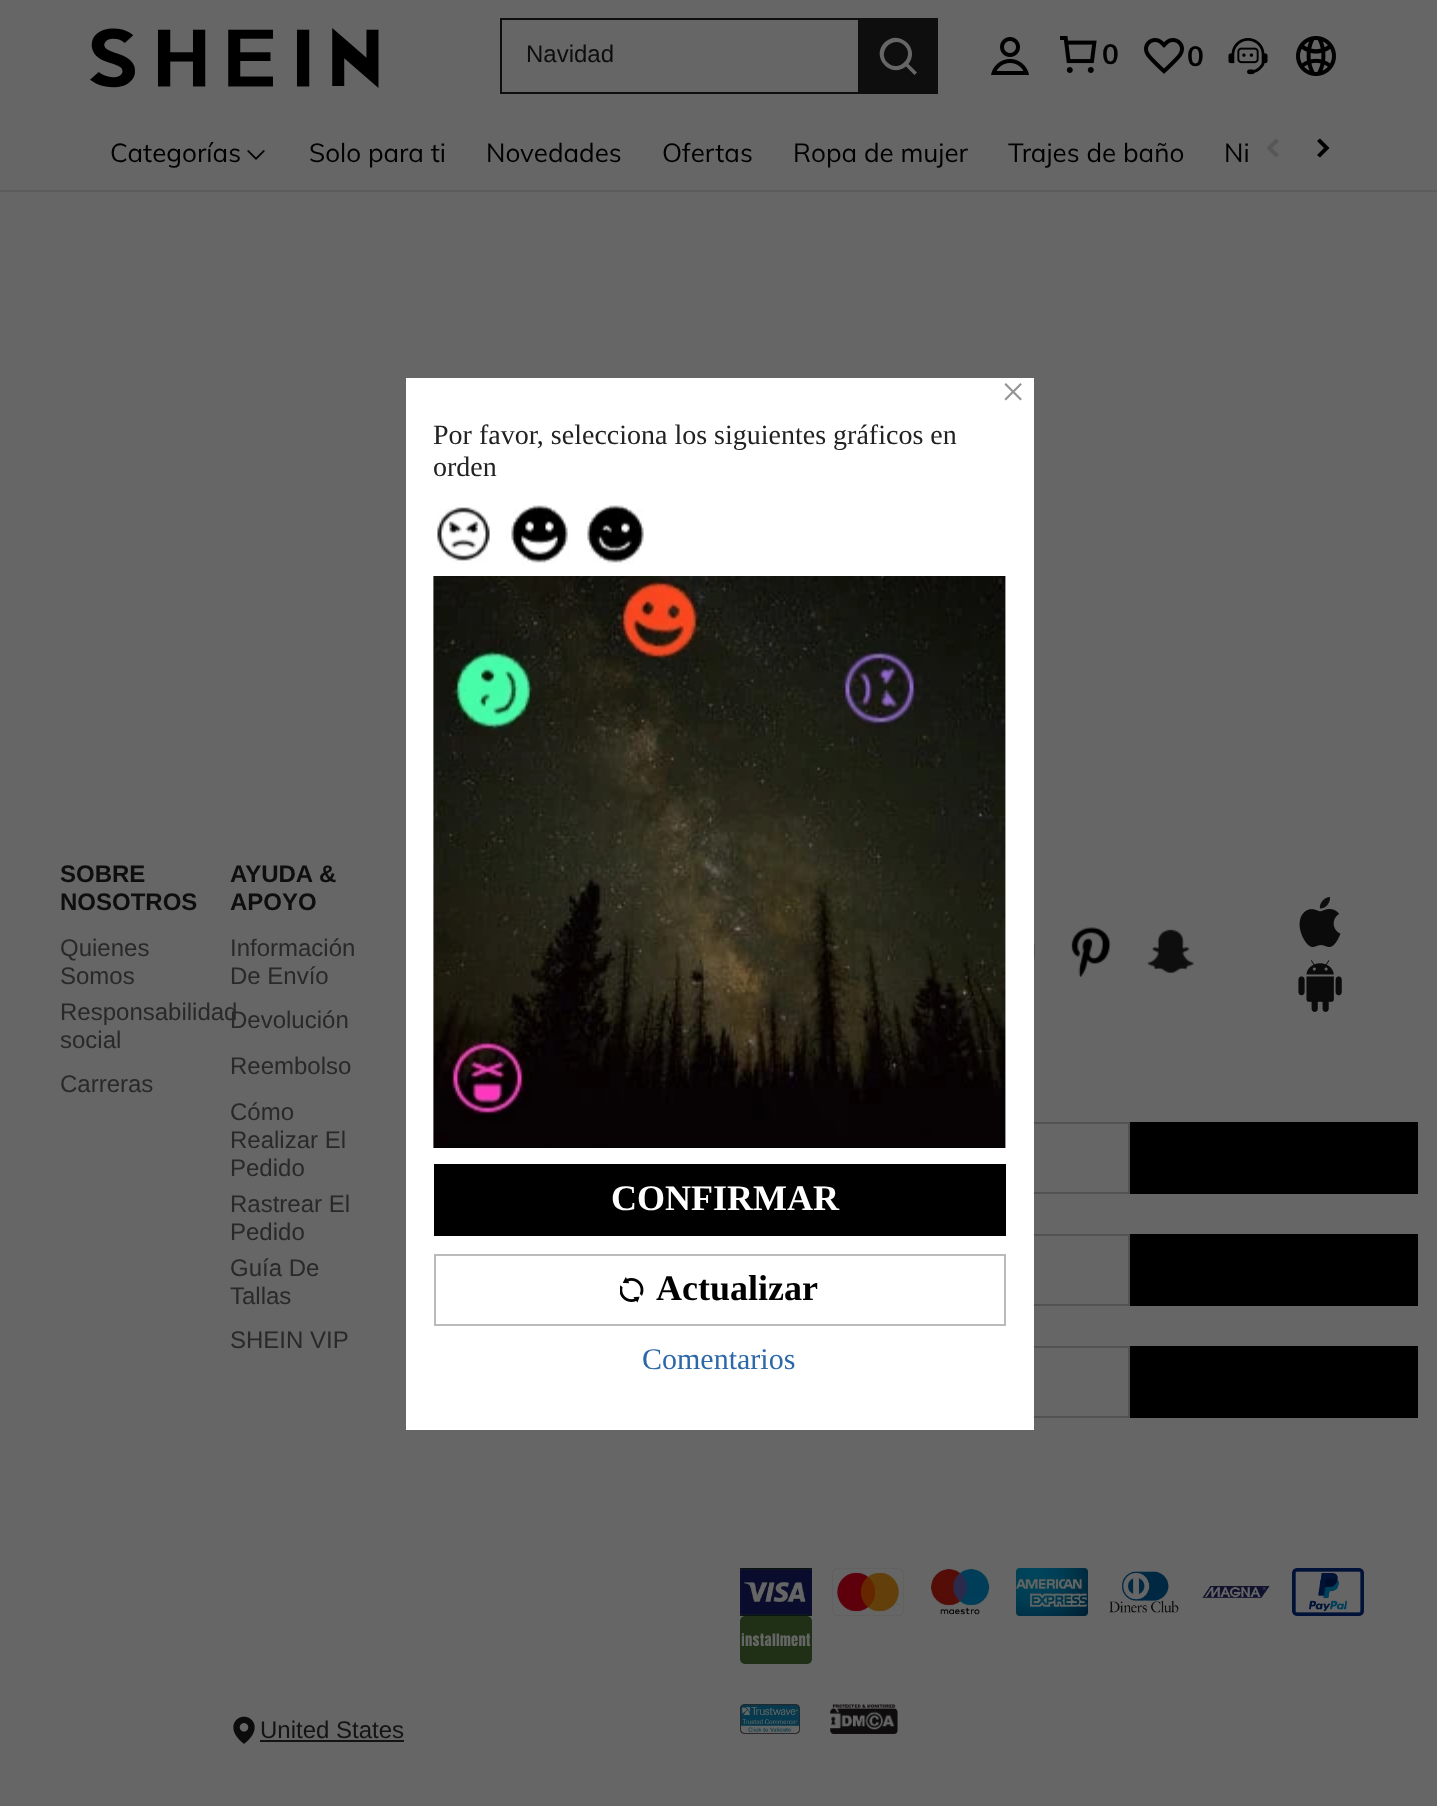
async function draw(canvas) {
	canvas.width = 1437;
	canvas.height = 1806;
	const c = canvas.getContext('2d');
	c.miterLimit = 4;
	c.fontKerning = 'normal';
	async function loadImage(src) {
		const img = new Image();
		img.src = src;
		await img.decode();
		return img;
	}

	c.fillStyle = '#666';
	c.fillRect(0, 0, 1437, 1806);
	c.drawImage(await loadImage('img1.png'), 90, 28, 289, 60);
	for (const [x, y, w, h, color] of [
		[500, 18, 358, 2, '#0e0e0e'],
		[500, 92, 358, 2, '#0e0e0e'],
		[500, 18, 2, 76, '#0e0e0e'],
	]) {
		c.fillStyle = color;
		c.fillRect(x, y, w, h);
	}
	c.font = '24px Liberation Sans';
	c.fillText('Navidad', 526, 62);
	c.fillRect(858, 18, 80, 76);
	c.fillStyle = '#666';
	c.beginPath();
	c.moveTo(884.5, 42.5);
	c.bezierCurveTo(898.5, 28.5, 921, 48, 908.5, 64);
	c.lineTo(917, 72.5);
	c.lineTo(914.5, 75);
	c.lineTo(906, 66.5);
	c.bezierCurveTo(890, 79, 870.5, 56.5, 884.5, 42.5);
	c.closePath();
	c.moveTo(904.5, 45.5);
	c.bezierCurveTo(893.5, 34.5, 876.5, 51.5, 887.5, 62.5);
	c.bezierCurveTo(898.5, 73.5, 915.5, 56.5, 904.5, 45.5);
	c.closePath();
	c.fill('evenodd');
	c.drawImage(await loadImage('img2.png'), 991, 37, 38, 38);
	c.drawImage(await loadImage('img3.png'), 1060, 36, 37, 37);
	c.font = 'bold 28px Muli';
	c.fillStyle = '#000';
	c.fillText('0', 1102, 64);
	c.drawImage(await loadImage('img4.png'), 1144, 38, 40, 36);
	c.fillText('0', 1187, 66);
	c.drawImage(await loadImage('img5.png'), 1228, 38, 40, 37);
	c.drawImage(await loadImage('img6.png'), 1296, 36, 40, 40);
	c.fillStyle = '#5c5c5c';
	c.fillRect(0, 190, 1437, 2);
	c.font = '26px Muli';
	c.fillStyle = '#000';
	c.fillText('Categorías', 110, 162);
	c.beginPath();
	c.moveTo(263.5, 150);
	c.lineTo(265, 151);
	c.lineTo(256, 160);
	c.lineTo(247, 151);
	c.lineTo(248.5, 150);
	c.lineTo(256, 157.5);
	c.closePath();
	c.fill();
	for (const [text, x, y] of [
		['Solo para ti', 309, 162],
		['Novedades', 486, 162],
		['Ofertas', 662, 162],
		['Ropa de mujer', 793, 162],
		['Trajes de baño', 1008, 162],
		['Ni', 1224, 162],
	]) {
		c.fillText(text, x, y);
	}
	c.fillStyle = '#575757';
	c.beginPath();
	c.moveTo(1276, 138.5);
	c.lineTo(1279, 141);
	c.lineTo(1272, 148);
	c.lineTo(1279, 155);
	c.lineTo(1276, 157.5);
	c.lineTo(1266.5, 148);
	c.closePath();
	c.fill('evenodd');
	c.fillStyle = '#000';
	c.beginPath();
	c.moveTo(1317, 141);
	c.lineTo(1320, 138.5);
	c.lineTo(1329.5, 148);
	c.lineTo(1320, 157.5);
	c.lineTo(1317, 155);
	c.lineTo(1324, 148);
	c.closePath();
	c.fill('evenodd');
	c.font = 'bold 24px Liberation Sans';
	c.fillStyle = '#0e0e0e';
	c.fillText('SOBRE', 60, 882);
	c.fillText('NOSOTROS', 60, 910);
	c.font = '24px Liberation Sans';
	c.fillStyle = '#292929';
	for (const [text, x, y] of [
		['Quienes', 60, 956],
		['Somos', 60, 984],
		['Responsabilidad', 60, 1020],
		['social', 60, 1048],
		['Carreras', 60, 1092],
	]) {
		c.fillText(text, x, y);
	}
	c.font = 'bold 24px Liberation Sans';
	c.fillStyle = '#0e0e0e';
	c.fillText('AYUDA &', 230, 882);
	c.fillText('APOYO', 230, 910);
	c.font = '24px Liberation Sans';
	c.fillStyle = '#292929';
	for (const [text, x, y] of [
		['Información', 230, 956],
		['De Envío', 230, 984],
		['Devolución', 230, 1028],
		['Reembolso', 230, 1074],
		['Cómo', 230, 1120],
		['Realizar El', 230, 1148],
		['Pedido', 230, 1176],
		['Rastrear El', 230, 1212],
		['Pedido', 230, 1240],
		['Guía De', 230, 1276],
		['Tallas', 230, 1304],
		['SHEIN VIP', 230, 1348],
	]) {
		c.fillText(text, x, y);
	}
	c.drawImage(await loadImage('img7.png'), 1034, 942, 1, 20);
	c.drawImage(await loadImage('img8.png'), 1071, 927, 40, 50);
	c.drawImage(await loadImage('img9.png'), 1147, 929, 47, 44);
	c.drawImage(await loadImage('img10.png'), 1299, 896, 42, 52);
	c.drawImage(await loadImage('img11.png'), 1298, 960, 44, 52);
	c.strokeStyle = '#525252';
	c.lineWidth = 2;
	c.strokeRect(741, 1123, 388, 70);
	c.fillStyle = '#000';
	c.fillRect(1130, 1122, 288, 72);
	c.strokeRect(901, 1235, 228, 70);
	c.fillRect(1130, 1234, 288, 72);
	c.strokeRect(901, 1347, 228, 70);
	c.fillRect(1130, 1346, 288, 72);
	c.drawImage(await loadImage('img12.png'), 740, 1568, 72, 48);
	c.drawImage(await loadImage('img13.png'), 832, 1568, 72, 48);
	c.drawImage(await loadImage('img14.png'), 924, 1568, 72, 48);
	c.drawImage(await loadImage('img15.png'), 1016, 1568, 72, 48);
	c.drawImage(await loadImage('img16.png'), 1108, 1568, 72, 48);
	c.drawImage(await loadImage('img17.png'), 1200, 1568, 72, 48);
	c.drawImage(await loadImage('img18.png'), 1292, 1568, 72, 48);
	c.drawImage(await loadImage('img19.png'), 740, 1616, 72, 48);
	c.drawImage(await loadImage('img20.png'), 233, 1716, 22, 28);
	c.fillStyle = '#141414';
	c.fillText('United States', 260, 1738);
	c.fillRect(260, 1740, 144, 2);
	c.drawImage(await loadImage('img21.png'), 740, 1704, 60, 30);
	c.drawImage(await loadImage('img22.png'), 830, 1704, 68, 30);
	c.fillStyle = '#fff';
	c.fillRect(406, 378, 628, 1052);
	c.font = '43px Liberation Serif';
	c.fillStyle = '#959595';
	c.fillText('×', 1001, 406);
	c.font = '28px Liberation Serif';
	c.fillStyle = '#222';
	c.fillText('Por favor, selecciona los siguientes gráficos en', 433, 444);
	c.fillText('orden', 433, 476);
	c.drawImage(await loadImage('img23.png'), 436, 505, 208, 59);
	c.drawImage(await loadImage('img24.png'), 433, 576, 573, 572);
	c.fillStyle = '#000';
	c.fillRect(434, 1164, 572, 72);
	c.font = 'bold 36px Liberation Serif';
	c.fillStyle = '#fff';
	c.fillText('CONFIRMAR', 611, 1210);
	c.strokeStyle = '#bbb';
	c.strokeRect(435, 1255, 570, 70);
	c.drawImage(await loadImage('img25.png'), 620, 1277, 24, 26);
	c.fillStyle = '#000';
	c.fillText('Actualizar', 656, 1300);
	c.font = '30px Liberation Serif';
	c.fillStyle = '#2d68a8';
	c.fillText('Comentarios', 642, 1369);
}

draw(document.querySelector('canvas'));
